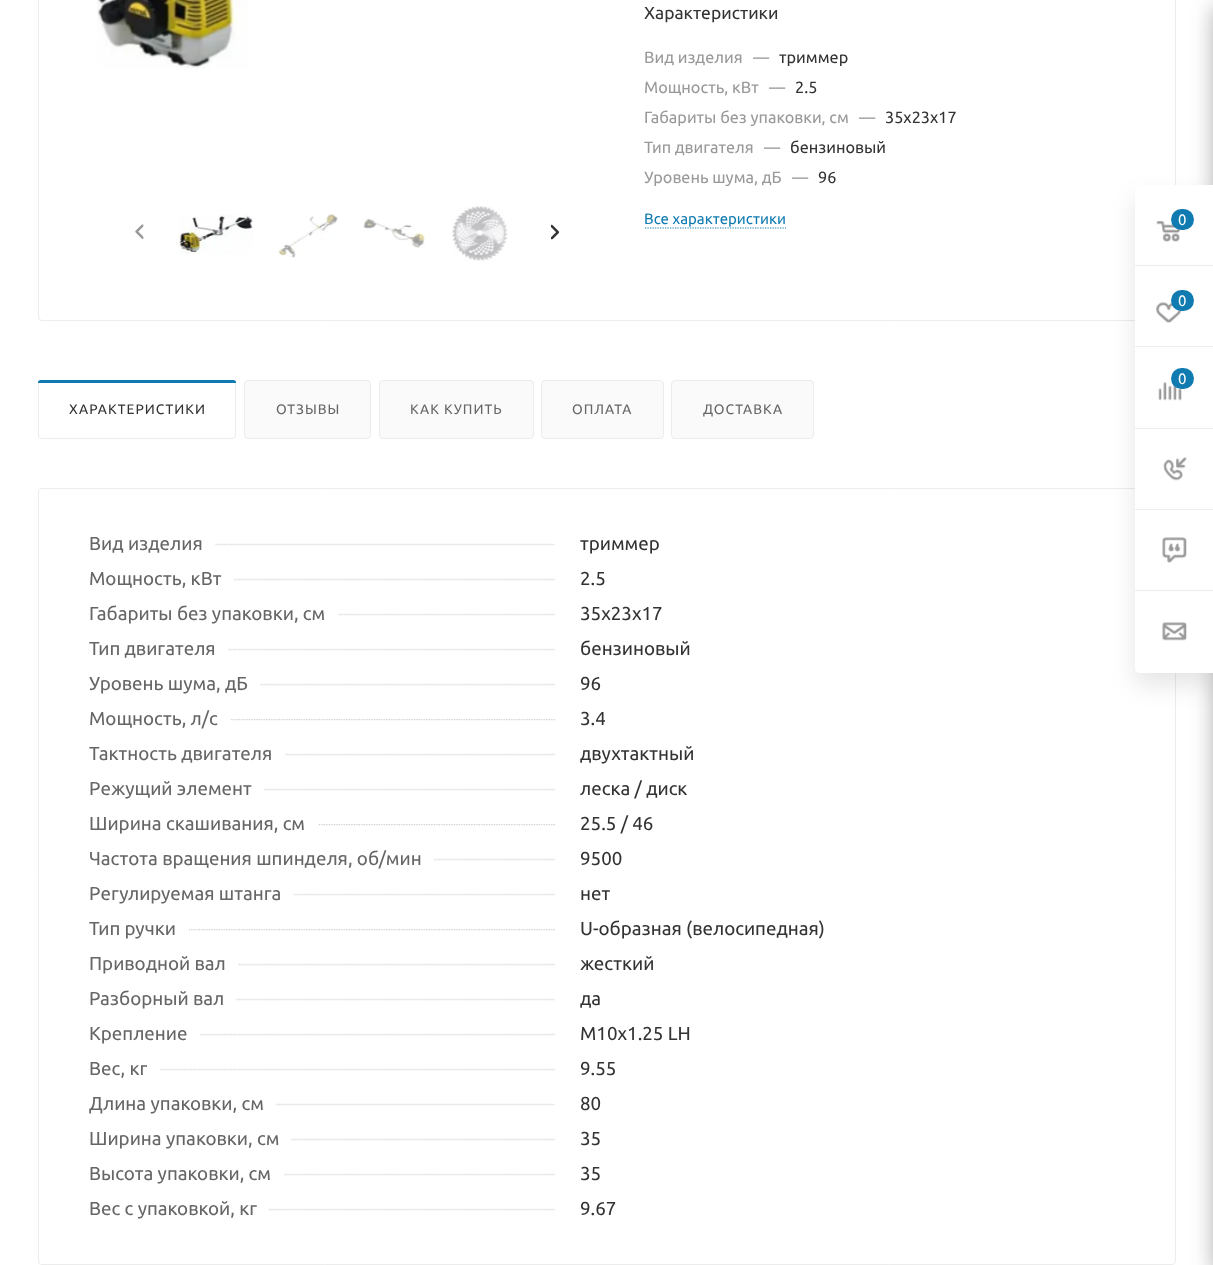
async function draw(canvas) {
	canvas.width = 1213;
	canvas.height = 1265;
	const c = canvas.getContext('2d');
	c.miterLimit = 4;
	c.fontKerning = 'normal';
	async function loadImage(src) {
		const img = new Image();
		img.src = src;
		await img.decode();
		return img;
	}

	c.fillStyle = '#fff';
	c.fillRect(0, 0, 1213, 1265);
	c.beginPath();
	c.roundRect(38.5, -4.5, 1137, 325, 3.5);
	c.strokeStyle = '#ececec';
	c.stroke();
	c.drawImage(await loadImage('img1.png'), 97, 0, 152, 69);
	c.drawImage(await loadImage('img2.png'), 178, 214, 75, 40);
	c.drawImage(await loadImage('img3.png'), 278, 214, 60, 44);
	c.drawImage(await loadImage('img4.png'), 363, 218, 63, 30);
	c.drawImage(await loadImage('img5.png'), 452, 206, 56, 55);
	c.drawImage(await loadImage('img6.png'), 135, 224, 9, 15);
	c.drawImage(await loadImage('img7.png'), 550, 224, 10, 16);
	c.font = '17.5px Ubuntu';
	c.fillStyle = '#333';
	c.fillText('Характеристики', 644, 19);
	c.font = '16.25px Ubuntu';
	c.fillStyle = '#999';
	c.fillText('Вид изделия', 644, 63);
	c.fillText('—', 753, 63);
	c.fillStyle = '#333';
	c.fillText('триммер', 779, 63);
	c.fillStyle = '#999';
	c.fillText('Мощность, кВт', 644, 93);
	c.fillText('—', 769, 93);
	c.fillStyle = '#333';
	c.fillText('2.5', 795, 93);
	c.fillStyle = '#999';
	c.fillText('Габариты без упаковки, см', 644, 123);
	c.fillText('—', 859, 123);
	c.fillStyle = '#333';
	c.fillText('35х23х17', 885, 123);
	c.fillStyle = '#999';
	c.fillText('Тип двигателя', 644, 153);
	c.fillText('—', 764, 153);
	c.fillStyle = '#333';
	c.fillText('бензиновый', 790, 153);
	c.fillStyle = '#999';
	c.fillText('Уровень шума, дБ', 644, 183);
	c.fillText('—', 792, 183);
	c.fillStyle = '#333';
	c.fillText('96', 818, 183);
	c.font = '15px Ubuntu';
	c.fillStyle = '#107bb1';
	c.fillText('Все характеристики', 644, 224);
	c.beginPath();
	c.moveTo(645, 228);
	c.lineTo(786, 228);
	c.strokeStyle = '#107bb1';
	c.lineWidth = 1.2;
	c.setLineDash([1.25, 1.25]);
	c.stroke();
	c.fillStyle = '#fafafa';
	c.beginPath();
	c.roundRect(38.5, 380.5, 197, 58, 3.5);
	c.fill();
	c.strokeStyle = '#ececec';
	c.lineWidth = 1;
	c.setLineDash([]);
	c.stroke();
	c.fillStyle = '#fff';
	c.beginPath();
	c.roundRect(39, 381, 196, 57, 4);
	c.fill();
	c.fillStyle = '#107bb1';
	c.beginPath();
	c.roundRect(38, 380, 198, 3, [2.5, 2.5, 0, 0]);
	c.fill();
	c.letterSpacing = '1px';
	c.font = '13.75px Ubuntu';
	c.fillStyle = '#333';
	c.fillText('ХАРАКТЕРИСТИКИ', 69, 414);
	c.fillStyle = '#fafafa';
	c.beginPath();
	c.roundRect(244.5, 380.5, 126, 58, 3.5);
	c.fill();
	c.stroke();
	c.fillStyle = '#666';
	c.fillText('ОТЗЫВЫ', 276, 414);
	c.fillStyle = '#fafafa';
	c.beginPath();
	c.roundRect(379.5, 380.5, 154, 58, 3.5);
	c.fill();
	c.stroke();
	c.fillStyle = '#666';
	c.fillText('КАК КУПИТЬ', 410, 414);
	c.fillStyle = '#fafafa';
	c.beginPath();
	c.roundRect(541.5, 380.5, 122, 58, 3.5);
	c.fill();
	c.stroke();
	c.fillStyle = '#666';
	c.fillText('ОПЛАТА', 572, 414);
	c.fillStyle = '#fafafa';
	c.beginPath();
	c.roundRect(671.5, 380.5, 142, 58, 3.5);
	c.fill();
	c.stroke();
	c.fillStyle = '#666';
	c.fillText('ДОСТАВКА', 703, 414);
	c.beginPath();
	c.roundRect(38.5, 488.5, 1137, 776, 3.5);
	c.stroke();
	c.drawImage(await loadImage('img8.png'), 88, 543, 467, 3);
	c.fillStyle = '#fff';
	c.fillRect(89, 543, 126, 3);
	c.letterSpacing = '0px';
	c.font = '18.75px Ubuntu';
	c.fillStyle = '#666';
	c.fillText('Вид изделия', 89, 550);
	c.fillStyle = '#333';
	c.fillText('триммер', 580, 550);
	c.drawImage(await loadImage('img8.png'), 88, 578, 467, 3);
	c.fillStyle = '#fff';
	c.fillRect(89, 578, 145, 3);
	c.fillStyle = '#666';
	c.fillText('Мощность, кВт', 89, 585);
	c.fillStyle = '#333';
	c.fillText('2.5', 580, 585);
	c.drawImage(await loadImage('img8.png'), 88, 613, 467, 3);
	c.fillStyle = '#fff';
	c.fillRect(89, 613, 249, 3);
	c.fillStyle = '#666';
	c.fillText('Габариты без упаковки, см', 89, 620);
	c.fillStyle = '#333';
	c.fillText('35х23х17', 580, 620);
	c.drawImage(await loadImage('img8.png'), 88, 648, 467, 3);
	c.fillStyle = '#fff';
	c.fillRect(89, 648, 139, 3);
	c.fillStyle = '#666';
	c.fillText('Тип двигателя', 89, 655);
	c.fillStyle = '#333';
	c.fillText('бензиновый', 580, 655);
	c.drawImage(await loadImage('img8.png'), 88, 683, 467, 3);
	c.fillStyle = '#fff';
	c.fillRect(89, 683, 171, 3);
	c.fillStyle = '#666';
	c.fillText('Уровень шума, дБ', 89, 690);
	c.fillStyle = '#333';
	c.fillText('96', 580, 690);
	c.drawImage(await loadImage('img9.png'), 230, 719, 325, 2);
	c.fillStyle = '#666';
	c.fillText('Мощность, л/с', 89, 725);
	c.fillStyle = '#333';
	c.fillText('3.4', 580, 725);
	c.drawImage(await loadImage('img8.png'), 88, 753, 467, 3);
	c.fillStyle = '#fff';
	c.fillRect(89, 753, 196, 3);
	c.fillStyle = '#666';
	c.fillText('Тактность двигателя', 89, 760);
	c.fillStyle = '#333';
	c.fillText('двухтактный', 580, 760);
	c.drawImage(await loadImage('img8.png'), 88, 788, 467, 3);
	c.fillStyle = '#fff';
	c.fillRect(89, 788, 175, 3);
	c.fillStyle = '#666';
	c.fillText('Режущий элемент', 89, 795);
	c.fillStyle = '#333';
	c.fillText('леска / диск', 580, 795);
	c.drawImage(await loadImage('img10.png'), 318, 824, 237, 2);
	c.fillStyle = '#666';
	c.fillText('Ширина скашивания, см', 89, 830);
	c.fillStyle = '#333';
	c.fillText('25.5 / 46', 580, 830);
	c.drawImage(await loadImage('img8.png'), 88, 858, 467, 3);
	c.fillStyle = '#fff';
	c.fillRect(89, 858, 345, 3);
	c.fillStyle = '#666';
	c.fillText('Частота вращения шпинделя, об/мин', 89, 865);
	c.fillStyle = '#333';
	c.fillText('9500', 580, 865);
	c.drawImage(await loadImage('img8.png'), 88, 893, 467, 3);
	c.fillStyle = '#fff';
	c.fillRect(89, 893, 205, 3);
	c.fillStyle = '#666';
	c.fillText('Регулируемая штанга', 89, 900);
	c.fillStyle = '#333';
	c.fillText('нет', 580, 900);
	c.drawImage(await loadImage('img11.png'), 189, 929, 366, 2);
	c.fillStyle = '#666';
	c.fillText('Тип ручки', 89, 935);
	c.fillStyle = '#333';
	c.fillText('U-образная (велосипедная)', 580, 935);
	c.drawImage(await loadImage('img8.png'), 88, 963, 467, 3);
	c.fillStyle = '#fff';
	c.fillRect(89, 963, 149, 3);
	c.fillStyle = '#666';
	c.fillText('Приводной вал', 89, 970);
	c.fillStyle = '#333';
	c.fillText('жесткий', 580, 970);
	c.drawImage(await loadImage('img8.png'), 88, 998, 467, 3);
	c.fillStyle = '#fff';
	c.fillRect(89, 998, 147, 3);
	c.fillStyle = '#666';
	c.fillText('Разборный вал', 89, 1005);
	c.fillStyle = '#333';
	c.fillText('да', 580, 1005);
	c.drawImage(await loadImage('img8.png'), 88, 1033, 467, 3);
	c.fillStyle = '#fff';
	c.fillRect(89, 1033, 111, 3);
	c.fillStyle = '#666';
	c.fillText('Крепление', 89, 1040);
	c.fillStyle = '#333';
	c.fillText('М10х1.25 LH', 580, 1040);
	c.drawImage(await loadImage('img8.png'), 88, 1068, 467, 3);
	c.fillStyle = '#fff';
	c.fillRect(89, 1068, 71, 3);
	c.fillStyle = '#666';
	c.fillText('Вес, кг', 89, 1075);
	c.fillStyle = '#333';
	c.fillText('9.55', 580, 1075);
	c.drawImage(await loadImage('img8.png'), 88, 1103, 467, 3);
	c.fillStyle = '#fff';
	c.fillRect(89, 1103, 187, 3);
	c.fillStyle = '#666';
	c.fillText('Длина упаковки, см', 89, 1110);
	c.fillStyle = '#333';
	c.fillText('80', 580, 1110);
	c.drawImage(await loadImage('img8.png'), 88, 1138, 467, 3);
	c.fillStyle = '#fff';
	c.fillRect(89, 1138, 202, 3);
	c.fillStyle = '#666';
	c.fillText('Ширина упаковки, см', 89, 1145);
	c.fillStyle = '#333';
	c.fillText('35', 580, 1145);
	c.drawImage(await loadImage('img8.png'), 88, 1173, 467, 3);
	c.fillStyle = '#fff';
	c.fillRect(89, 1173, 195, 3);
	c.fillStyle = '#666';
	c.fillText('Высота упаковки, см', 89, 1180);
	c.fillStyle = '#333';
	c.fillText('35', 580, 1180);
	c.drawImage(await loadImage('img8.png'), 88, 1208, 467, 3);
	c.fillStyle = '#fff';
	c.fillRect(89, 1208, 180, 3);
	c.fillStyle = '#666';
	c.fillText('Вес с упаковкой, кг', 89, 1215);
	c.fillStyle = '#333';
	c.fillText('9.67', 580, 1215);
	c.fillStyle = '#2c2c2c66';
	c.filter = 'blur(11px)';
	c.beginPath();
	c.roundRect(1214, 8, 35, 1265, 2.5);
	c.fill();
	c.filter = 'none';
	c.fillStyle = '#0000001a';
	c.filter = 'blur(12.5px)';
	c.beginPath();
	c.roundRect(1135, 198, 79, 487, 5);
	c.fill();
	c.filter = 'none';
	c.fillStyle = '#fff';
	c.beginPath();
	c.moveTo(1140, 185);
	c.lineTo(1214, 185);
	c.lineTo(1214, 673);
	c.lineTo(1140, 673);
	c.bezierCurveTo(1137, 673, 1135, 671, 1135, 668);
	c.lineTo(1135, 190);
	c.bezierCurveTo(1135, 187, 1137, 185, 1140, 185);
	c.closePath();
	c.fill();
	c.fillStyle = '#ececec';
	c.fillRect(1135, 265, 78, 1);
	c.drawImage(await loadImage('img12.png'), 1156, 221, 25, 21);
	c.fillStyle = '#107bb1';
	c.beginPath();
	c.roundRect(1171, 209, 23, 21, 10.5);
	c.fill();
	c.font = '15px Ubuntu';
	c.fillStyle = '#fff';
	c.fillText('0', 1178, 225);
	c.fillStyle = '#ececec';
	c.fillRect(1135, 346, 78, 1);
	c.drawImage(await loadImage('img13.png'), 1156, 302, 26, 21);
	c.fillStyle = '#107bb1';
	c.beginPath();
	c.roundRect(1171, 290, 23, 21, 10.5);
	c.fill();
	c.fillStyle = '#fff';
	c.fillText('0', 1178, 306);
	c.fillStyle = '#ececec';
	c.fillRect(1135, 428, 78, 1);
	c.drawImage(await loadImage('img14.png'), 1158, 382, 24, 19);
	c.fillStyle = '#107bb1';
	c.beginPath();
	c.roundRect(1171, 368, 23, 21, 10.5);
	c.fill();
	c.fillStyle = '#fff';
	c.fillText('0', 1178, 384);
	c.fillStyle = '#ececec';
	c.fillRect(1135, 509, 78, 1);
	c.drawImage(await loadImage('img15.png'), 1163, 457, 24, 24);
	c.fillRect(1135, 590, 78, 1);
	c.drawImage(await loadImage('img16.png'), 1162, 537, 25, 26);
	c.drawImage(await loadImage('img17.png'), 1162, 622, 25, 19);
}

draw(document.querySelector('canvas'));
